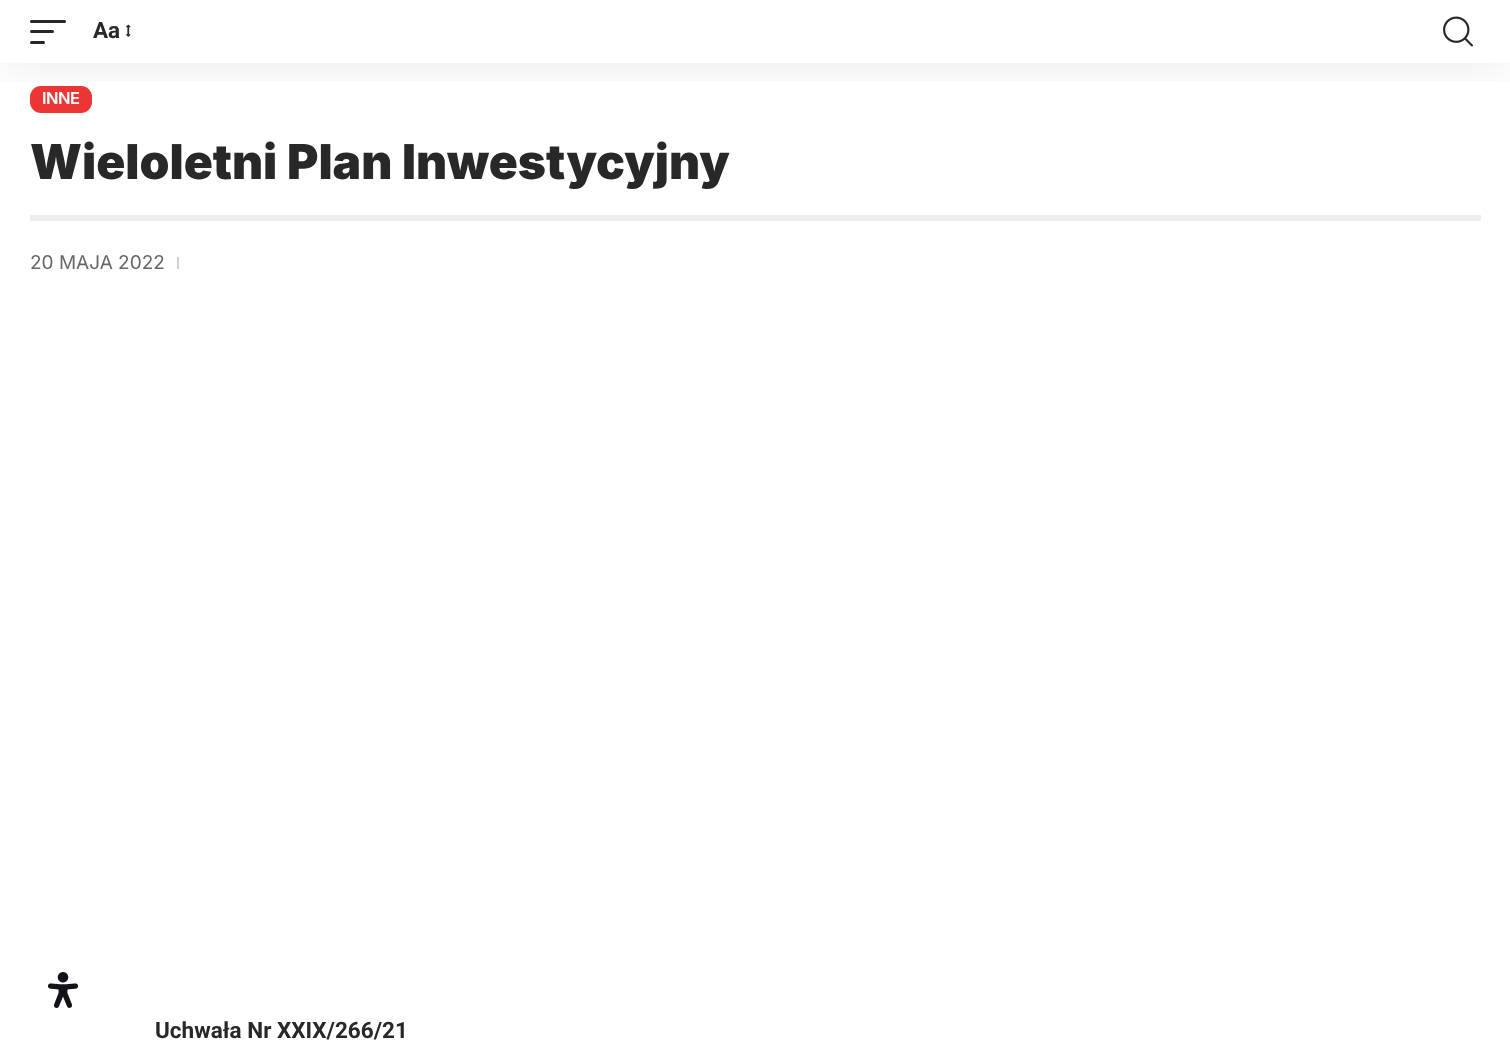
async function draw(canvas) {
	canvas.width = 1510;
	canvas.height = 1052;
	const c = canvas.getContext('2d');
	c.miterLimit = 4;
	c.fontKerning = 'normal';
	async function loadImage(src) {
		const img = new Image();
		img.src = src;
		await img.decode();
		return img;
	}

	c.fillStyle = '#fff';
	c.fillRect(0, 0, 1510, 1052);
	c.fillStyle = '#ec3535';
	c.beginPath();
	c.roundRect(30, 86, 62, 27, 11);
	c.fill();
	c.save();
	c.beginPath();
	c.rect(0, 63, 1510, 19);
	c.clip();
	c.fillStyle = '#00000012';
	c.filter = 'blur(22.5px)';
	c.beginPath();
	c.rect(0, 6, 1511, 63);
	c.fill();
	c.filter = 'none';
	c.restore();
	c.fillStyle = '#282828';
	c.beginPath();
	c.roundRect(30, 20, 36, 3, 1.5);
	c.fill();
	c.beginPath();
	c.roundRect(30, 30, 24, 3, 1.5);
	c.fill();
	c.beginPath();
	c.roundRect(30, 41, 15, 3, 1.5);
	c.fill();
	c.font = 'bold 22.5px Roboto';
	c.fillText('Aa', 93, 38);
	c.drawImage(await loadImage('img1.png'), 126, 24, 5, 13);
	c.drawImage(await loadImage('img2.png'), 1443, 16, 30, 31);
	c.letterSpacing = '-0.5px';
	c.font = '600 16.5px Inter';
	c.fillStyle = '#fff';
	c.fillText('INNE', 42, 104);
	c.letterSpacing = '0px';
	c.font = '900 48px Inter';
	c.fillStyle = '#282828';
	c.fillText('Wieloletni Plan Inwestycyjny', 30, 179);
	c.fillStyle = '#ededed';
	c.fillRect(30, 215, 1451, 6);
	c.font = '19px Inter';
	c.fillStyle = '#666';
	c.fillText('20 MAJA 2022', 30, 269);
	c.fillStyle = '#d1d1d1';
	c.fillRect(177, 257, 2, 12);
	c.font = 'bold 22.5px Roboto';
	c.fillStyle = '#282828';
	c.fillText('Uchwała Nr XXIX/266/21', 155, 1038);
	c.drawImage(await loadImage('img3.png'), 47, 972, 32, 36);
}

draw(document.querySelector('canvas'));
